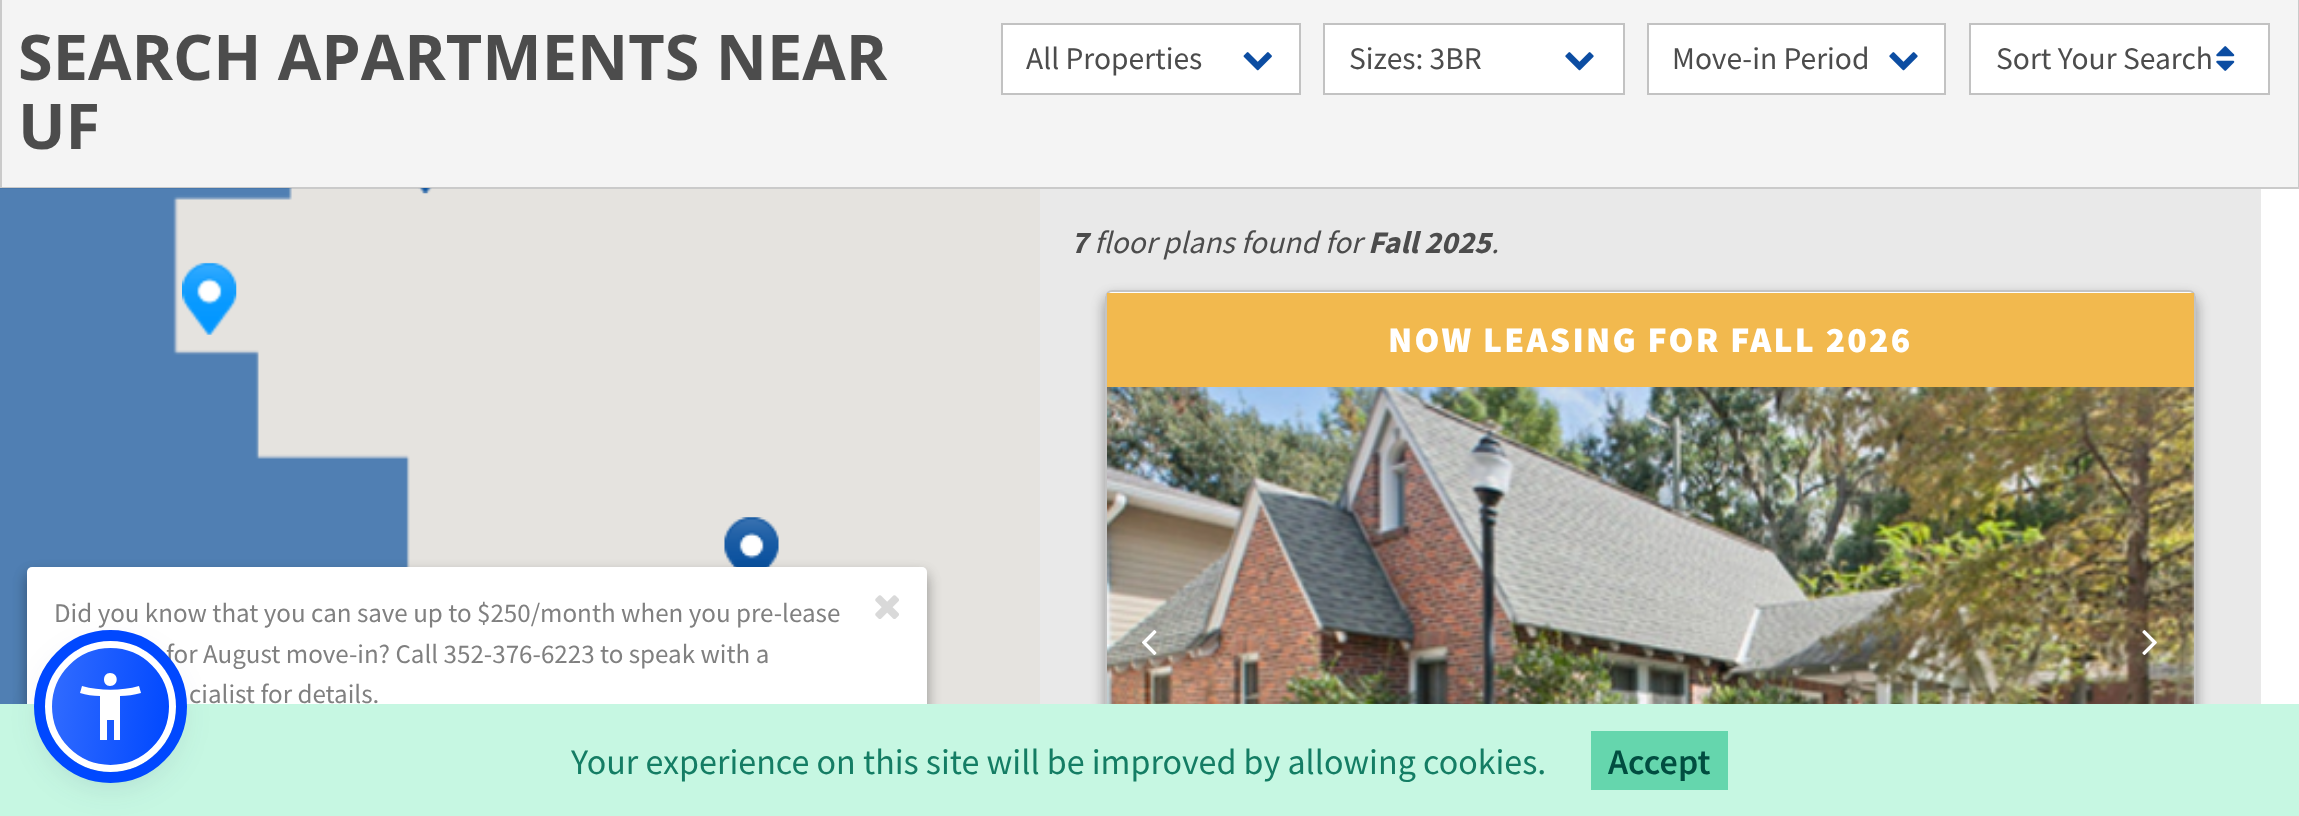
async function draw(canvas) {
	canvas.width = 2299;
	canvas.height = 816;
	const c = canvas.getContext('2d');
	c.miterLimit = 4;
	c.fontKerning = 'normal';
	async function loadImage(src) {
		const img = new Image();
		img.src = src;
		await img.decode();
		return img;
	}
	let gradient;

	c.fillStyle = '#fff';
	c.fillRect(0, 0, 2299, 816);
	c.fillStyle = '#f4f4f4';
	c.beginPath();
	c.rect(1, -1, 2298, 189);
	c.fill();
	c.strokeStyle = '#cacaca';
	c.lineWidth = 2;
	c.stroke();
	c.font = 'bold 63px Open Sans';
	c.fillStyle = '#4c4c4c';
	c.fillText('SEARCH APARTMENTS NEAR', 18, 80);
	c.fillText('UF', 18, 149);
	c.fillStyle = '#fff';
	c.beginPath();
	c.rect(1002, 24, 298, 70);
	c.fill();
	c.strokeStyle = '#c2c2c2';
	c.stroke();
	c.font = '31.5px Source Sans Pro';
	c.fillStyle = '#4c4c4c';
	c.fillText('All Properties', 1026, 69);
	c.drawImage(await loadImage('img1.png'), 1243, 52, 29, 19);
	c.fillStyle = '#fff';
	c.beginPath();
	c.rect(1324, 24, 300, 70);
	c.fill();
	c.stroke();
	c.fillStyle = '#4c4c4c';
	c.fillText('Sizes: 3BR', 1349, 69);
	c.drawImage(await loadImage('img2.png'), 1565, 52, 29, 19);
	c.fillStyle = '#fff';
	c.beginPath();
	c.rect(1648, 24, 297, 70);
	c.fill();
	c.stroke();
	c.fillStyle = '#4c4c4c';
	c.fillText('Move-in Period', 1672, 69);
	c.drawImage(await loadImage('img2.png'), 1889, 52, 29, 19);
	c.fillStyle = '#fff';
	c.beginPath();
	c.rect(1970, 24, 299, 70);
	c.fill();
	c.stroke();
	c.fillStyle = '#4c4c4c';
	c.fillText('Sort Your Search', 1996, 69);
	c.drawImage(await loadImage('img3.png'), 2216, 46, 19, 25);
	c.fillStyle = '#e9e9e9';
	c.fillRect(1040, 189, 1221, 515);
	c.font = 'italic bold 31.5px Source Sans Pro';
	c.fillStyle = '#4c4c4c';
	c.fillText('7', 1071, 253);
	c.font = 'italic 31.5px Source Sans Pro';
	c.fillText('floor plans found for', 1094, 253);
	c.font = 'italic bold 31.5px Source Sans Pro';
	c.fillText('Fall 2025', 1368, 253);
	c.font = 'italic 31.5px Source Sans Pro';
	c.fillText('.', 1491, 253);
	c.fillStyle = '#0000003b';
	c.filter = 'blur(7px)';
	c.beginPath();
	c.roundRect(1105, 297, 1091, 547, 7);
	c.fill();
	c.filter = 'none';
	c.fillStyle = '#00000029';
	c.filter = 'blur(7px)';
	c.beginPath();
	c.roundRect(1105, 297, 1091, 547, 7);
	c.fill();
	c.filter = 'none';
	c.fillStyle = '#fff';
	c.beginPath();
	c.moveTo(1112, 290);
	c.lineTo(2189, 290);
	c.bezierCurveTo(2193, 290, 2196, 293, 2196, 297);
	c.lineTo(2196, 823);
	c.lineTo(1105, 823);
	c.lineTo(1105, 297);
	c.bezierCurveTo(1105, 293, 1108, 290, 1112, 290);
	c.closePath();
	c.fill();
	c.beginPath();
	c.roundRect(1106, 291, 1089, 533, 6);
	c.strokeStyle = '#0000003b';
	c.stroke();
	c.fillStyle = '#f2b94e';
	c.fillRect(1107, 293, 1087, 94);
	c.letterSpacing = '2.25px';
	c.font = '900 36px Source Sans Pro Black';
	c.fillStyle = '#fff';
	c.fillText('NOW LEASING FOR FALL 2026', 1388, 352);
	c.fillStyle = '#d2d2d2';
	c.fillRect(1107, 387, 1087, 317);
	c.drawImage(await loadImage('img4.png'), 1107, 387, 1087, 317);
	c.drawImage(await loadImage('img5.png'), 1142, 630, 15, 25);
	c.drawImage(await loadImage('img6.png'), 2142, 630, 15, 25);
	c.fillStyle = '#e5e3df';
	c.fillRect(0, 189, 1040, 515);
	c.drawImage(await loadImage('img7.png'), 0, 188, 410, 516);
	c.drawImage(await loadImage('img8.png'), 418, 188, 14, 6);
	c.drawImage(await loadImage('img9.png'), 182, 262, 55, 73);
	c.drawImage(await loadImage('img10.png'), 724, 517, 55, 50);
	c.fillStyle = '#0000003b';
	c.filter = 'blur(7px)';
	c.beginPath();
	c.roundRect(27, 574, 900, 175, 5);
	c.fill();
	c.filter = 'none';
	c.fillStyle = '#00000029';
	c.filter = 'blur(7px)';
	c.beginPath();
	c.roundRect(27, 574, 900, 175, 5);
	c.fill();
	c.filter = 'none';
	c.fillStyle = '#fff';
	c.beginPath();
	c.roundRect(27, 567, 900, 176, 5);
	c.fill();
	c.letterSpacing = '0px';
	c.font = '27px Source Sans Pro';
	c.fillStyle = '#808080';
	c.fillText('Did you know that you can save up to $250/month when you pre-lease', 54, 622);
	c.drawImage(await loadImage('img11.png'), 875, 595, 24, 24);
	c.fillText('for August move-in? Call 352-376-6223 to speak with a', 166, 663);
	c.fillText('cialist for details.', 189, 703);
	c.fillStyle = '#c6f7e2';
	c.fillRect(0, 704, 2299, 112);
	c.fillStyle = '#5d649433';
	c.filter = 'blur(4.5px)';
	c.beginPath();
	c.roundRect(45, 646, 131, 130, 65);
	c.fill();
	c.filter = 'none';
	c.fillStyle = '#252c6126';
	c.filter = 'blur(17px)';
	c.beginPath();
	c.roundRect(45, 653, 131, 130, 65);
	c.fill();
	c.filter = 'none';
	c.save();
	c.beginPath();
	c.roundRect(45, 641, 131, 131, 65.5);
	c.clip();
	gradient = c.createLinearGradient(46, 700, 174, 713);
	gradient.addColorStop(0, '#326cff');
	gradient.addColorStop(1, '#0048ff');
	c.fillStyle = gradient;
	c.fillRect(52, 648, 117, 117);
	c.restore();
	c.beginPath();
	c.arc(110.5, 706.5, 62, 0, 2 * Math.PI);
	c.strokeStyle = '#fff';
	c.lineWidth = 7;
	c.stroke();
	c.beginPath();
	c.arc(110.5, 706.5, 71, 0, 2 * Math.PI);
	c.strokeStyle = '#0048ff';
	c.lineWidth = 11;
	c.stroke();
	c.fillStyle = '#fff';
	c.beginPath();
	c.moveTo(139, 686);
	c.bezierCurveTo(121, 691, 100, 691, 82, 686);
	c.lineTo(80, 693);
	c.bezierCurveTo(86, 695, 93, 696, 100, 696);
	c.lineTo(100, 740);
	c.lineTo(107, 740);
	c.lineTo(107, 720);
	c.lineTo(114, 720);
	c.lineTo(114, 740);
	c.lineTo(120, 740);
	c.lineTo(120, 696);
	c.bezierCurveTo(127, 696, 134, 695, 141, 693);
	c.closePath();
	c.moveTo(110, 686);
	c.bezierCurveTo(119, 686, 119, 673, 110, 673);
	c.bezierCurveTo(102, 673, 102, 686, 110, 686);
	c.closePath();
	c.fill();
	c.font = '36px Source Sans Pro';
	c.fillStyle = '#147d64';
	c.fillText('Your experience on this site will be improved by allowing cookies.', 571, 774);
	c.fillStyle = '#65d6ad';
	c.fillRect(1591, 731, 137, 59);
	c.font = '600 36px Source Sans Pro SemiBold';
	c.fillStyle = '#014d40';
	c.fillText('Accept', 1608, 774);
}

draw(document.querySelector('canvas'));
